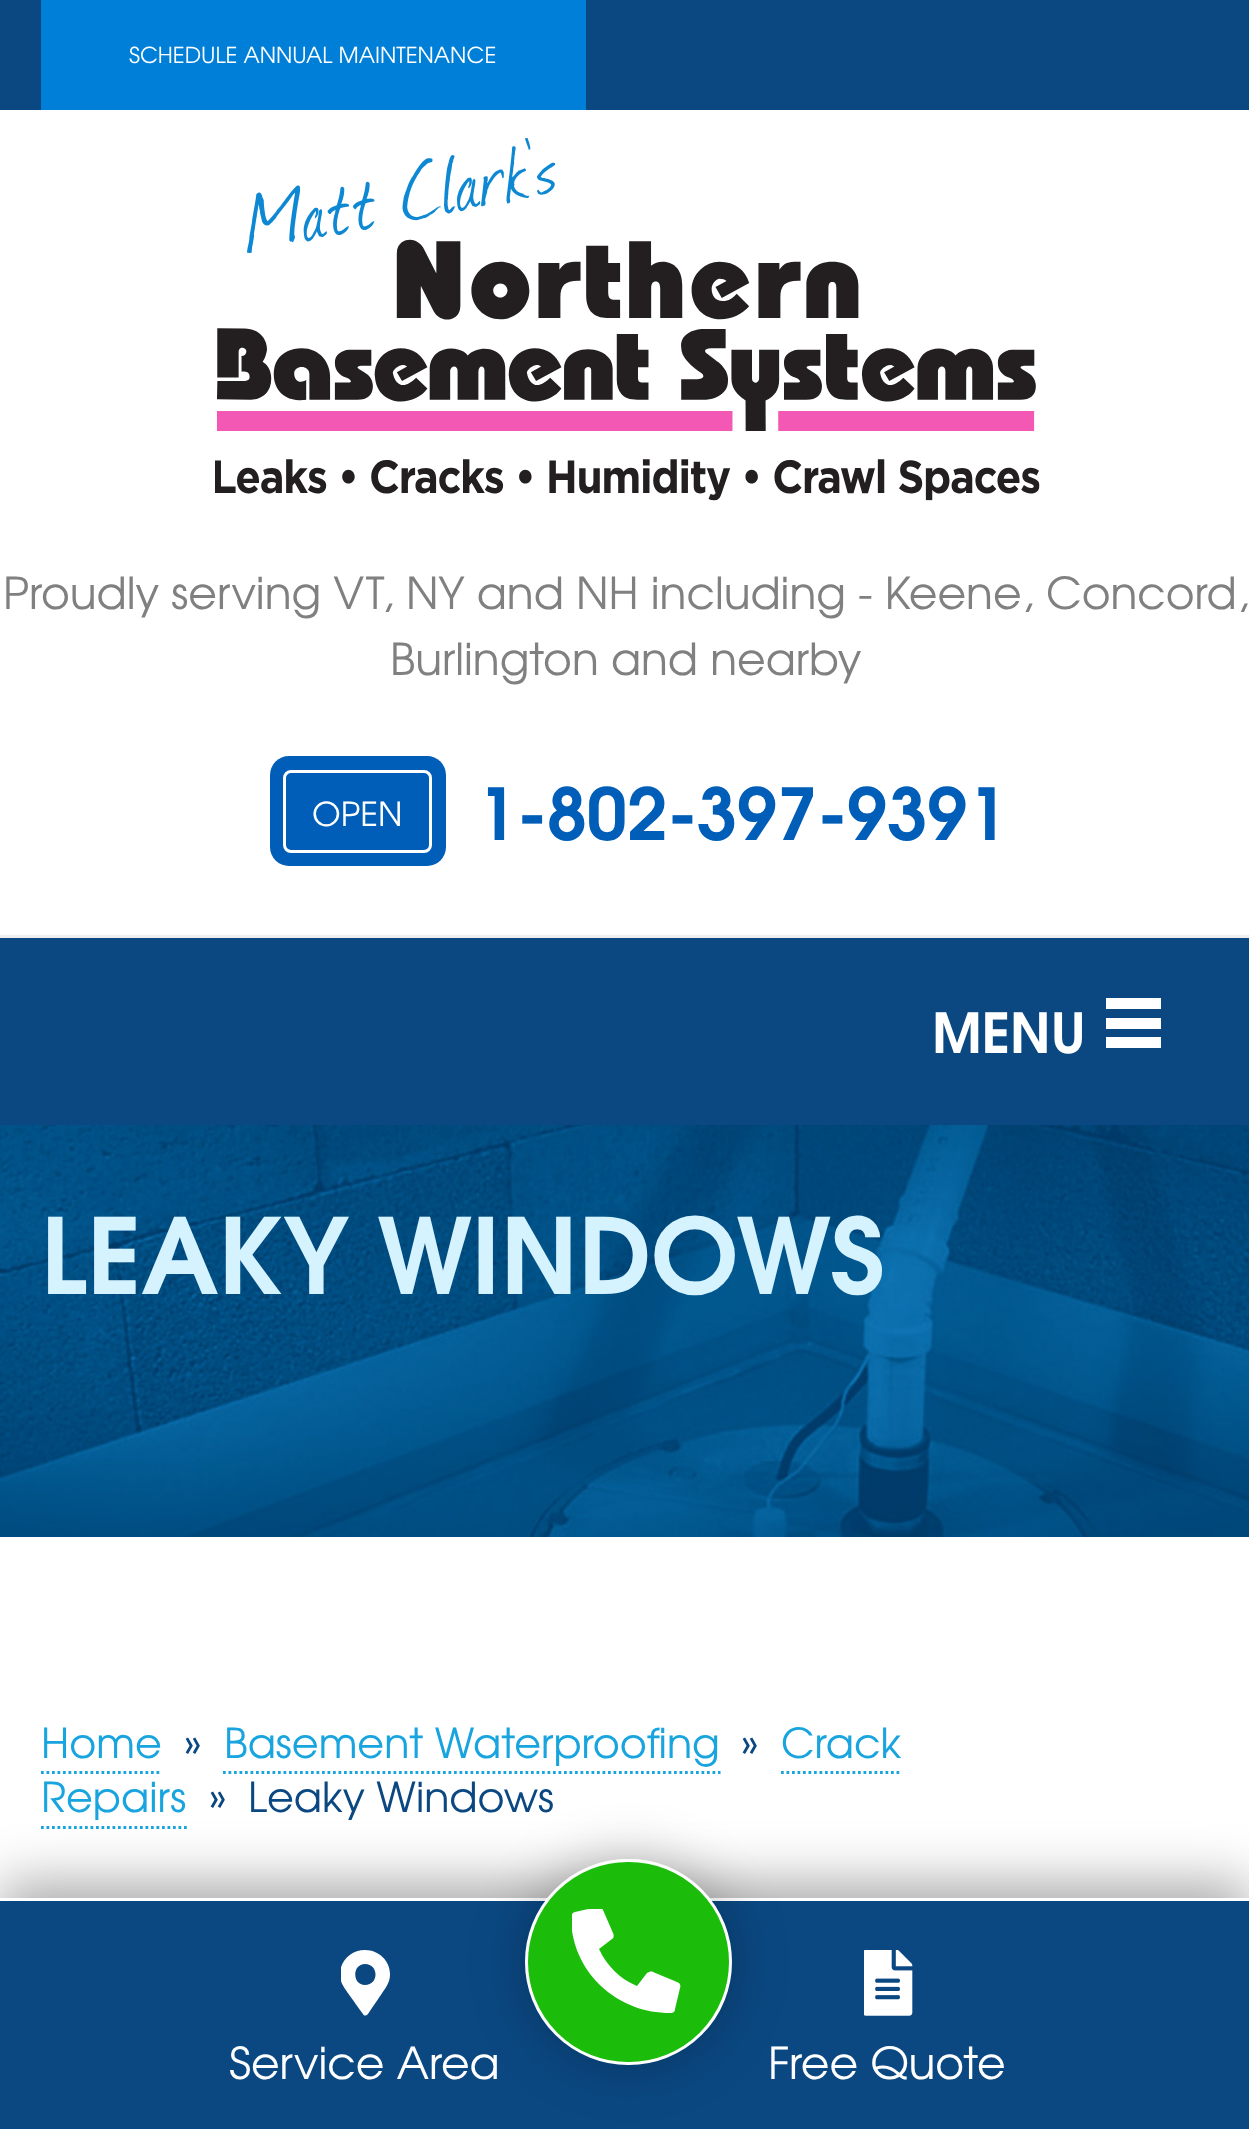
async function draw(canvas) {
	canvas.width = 1249;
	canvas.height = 2129;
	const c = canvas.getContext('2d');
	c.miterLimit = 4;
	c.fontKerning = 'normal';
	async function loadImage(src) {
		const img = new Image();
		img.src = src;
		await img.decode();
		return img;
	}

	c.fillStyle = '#fff';
	c.fillRect(0, 0, 1249, 2129);
	c.fillStyle = '#0b4882';
	c.fillRect(0, 0, 1249, 110);
	c.fillStyle = '#007fd8';
	c.fillRect(41, 0, 545, 110);
	c.font = '22px TeX Gyre Adventor';
	c.fillStyle = '#fff';
	c.fillText('SCHEDULE ANNUAL MAINTENANCE', 129, 63);
	c.fillStyle = '#eee';
	c.fillRect(0, 935, 1249, 3);
	c.drawImage(await loadImage('img1.png'), 215, 138, 825, 363);
	c.font = '44px TeX Gyre Adventor';
	c.fillStyle = '#808080';
	c.fillText('Proudly serving VT, NY and NH including - Keene, Concord,', 3, 609);
	c.fillText('Burlington and nearby', 390, 675);
	c.fillStyle = '#005eb8';
	c.beginPath();
	c.roundRect(270, 756, 176, 110, 19);
	c.fill();
	c.beginPath();
	c.roundRect(284.5, 771.5, 146, 80, 6.5);
	c.strokeStyle = '#fff';
	c.lineWidth = 3;
	c.stroke();
	c.font = '33px TeX Gyre Adventor';
	c.fillStyle = '#fff';
	c.fillText('OPEN', 312, 826);
	c.font = 'bold 71.5px TeX Gyre Adventor';
	c.fillStyle = '#005eb8';
	c.fillText('1-802-397-9391', 477, 840);
	c.fillStyle = '#0b4882';
	c.fillRect(0, 938, 1249, 187);
	c.font = 'bold 55px TeX Gyre Adventor';
	c.fillStyle = '#fff';
	c.fillText('MENU', 932, 1053);
	for (const [x, y, w, h, color] of [
		[1106, 1037, 55, 11, '#fff'],
		[1106, 1018, 55, 11, '#fff'],
		[1106, 998, 55, 11, '#fff'],
	]) {
		c.fillStyle = color;
		c.fillRect(x, y, w, h);
	}
	c.drawImage(await loadImage('img2.png'), 0, 1125, 1249, 412);
	c.font = 'bold 104.5px TeX Gyre Adventor';
	c.fillStyle = '#d5f2ff';
	c.fillText('LEAKY WINDOWS', 41, 1294);
	c.font = '41.25px TeX Gyre Adventor';
	c.fillStyle = '#18a4de';
	c.fillText('Home', 41, 1758);
	c.beginPath();
	c.moveTo(41, 1772.5);
	c.lineTo(162, 1772.5);
	c.strokeStyle = '#18a4de';
	c.lineWidth = 2.8;
	c.setLineDash([2.75, 2.75]);
	c.stroke();
	c.fillStyle = '#0b4882';
	c.fillText('»', 184, 1758);
	c.fillStyle = '#18a4de';
	c.fillText('Basement Waterproofing', 224, 1758);
	c.beginPath();
	c.moveTo(223, 1772.5);
	c.lineTo(720.5, 1772.5);
	c.stroke();
	c.fillStyle = '#0b4882';
	c.fillText('»', 741, 1758);
	c.fillStyle = '#18a4de';
	c.fillText('Crack', 781, 1758);
	c.beginPath();
	c.moveTo(781, 1772.5);
	c.lineTo(902, 1772.5);
	c.stroke();
	c.fillText('Repairs', 41, 1812);
	c.beginPath();
	c.moveTo(41, 1827.5);
	c.lineTo(187, 1827.5);
	c.stroke();
	c.fillStyle = '#0b4882';
	c.fillText('»', 209, 1812);
	c.fillText('Leaky Windows', 248, 1812);
	c.fillStyle = '#00000059';
	c.filter = 'blur(27.5px)';
	c.beginPath();
	c.rect(0, 1884, 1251, 234);
	c.fill();
	c.filter = 'none';
	c.fillStyle = '#0b4882';
	c.fillRect(0, 1901, 1249, 228);
	c.fillStyle = '#fff';
	c.fillRect(0, 1898, 1249, 3);
	c.save();
	c.beginPath();
	c.rect(341, 1950, 50, 66);
	c.clip();
	c.beginPath();
	c.moveTo(363, 2014);
	c.bezierCurveTo(344, 1987, 340, 1984, 340, 1974);
	c.bezierCurveTo(340, 1961, 351, 1950, 365, 1950);
	c.bezierCurveTo(379, 1950, 390, 1961, 390, 1974);
	c.bezierCurveTo(390, 1984, 386, 1987, 368, 2014);
	c.bezierCurveTo(366, 2016, 364, 2016, 363, 2014);
	c.closePath();
	c.moveTo(365, 1985);
	c.bezierCurveTo(379, 1985, 379, 1964, 365, 1964);
	c.bezierCurveTo(352, 1964, 352, 1985, 365, 1985);
	c.closePath();
	c.fill();
	c.restore();
	c.font = '44px TeX Gyre Adventor';
	c.fillText('Service Area', 229, 2079);
	c.save();
	c.beginPath();
	c.moveTo(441, 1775);
	c.lineTo(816, 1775);
	c.lineTo(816, 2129);
	c.lineTo(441, 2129);
	c.closePath();
	c.moveTo(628, 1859);
	c.lineTo(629, 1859);
	c.bezierCurveTo(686, 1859, 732, 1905, 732, 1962);
	c.bezierCurveTo(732, 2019, 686, 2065, 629, 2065);
	c.lineTo(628, 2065);
	c.bezierCurveTo(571, 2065, 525, 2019, 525, 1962);
	c.bezierCurveTo(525, 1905, 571, 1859, 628, 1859);
	c.closePath();
	c.clip('evenodd');
	c.fillStyle = '#00000040';
	c.filter = 'blur(27.5px)';
	c.beginPath();
	c.roundRect(525, 1859, 207, 206, 103);
	c.fill();
	c.filter = 'none';
	c.restore();
	c.fillStyle = '#1bbd0a';
	c.beginPath();
	c.roundRect(526.5, 1860.5, 204, 203, 101.5);
	c.fill();
	c.strokeStyle = '#fff';
	c.lineWidth = 3;
	c.setLineDash([]);
	c.stroke();
	c.save();
	c.beginPath();
	c.rect(572, 1909, 110, 107);
	c.clip();
	c.fillStyle = '#fff';
	c.beginPath();
	c.moveTo(675, 2009);
	c.lineTo(680, 1988);
	c.bezierCurveTo(681, 1985, 680, 1983, 677, 1982);
	c.lineTo(653, 1972);
	c.bezierCurveTo(651, 1971, 649, 1972, 647, 1973);
	c.lineTo(637, 1986);
	c.bezierCurveTo(620, 1979, 607, 1966, 599, 1949);
	c.lineTo(612, 1939);
	c.bezierCurveTo(614, 1938, 614, 1935, 613, 1933);
	c.lineTo(603, 1910);
	c.bezierCurveTo(602, 1908, 599, 1907, 597, 1907);
	c.lineTo(575, 1912);
	c.bezierCurveTo(572, 1913, 571, 1915, 571, 1917);
	c.bezierCurveTo(571, 1970, 615, 2013, 670, 2013);
	c.bezierCurveTo(673, 2013, 675, 2012, 675, 2009);
	c.closePath();
	c.fill();
	c.restore();
	c.drawImage(await loadImage('img3.png'), 864, 1950, 49, 66);
	c.fillStyle = '#fff';
	c.fillText('Free Quote', 768, 2079);
}

draw(document.querySelector('canvas'));
